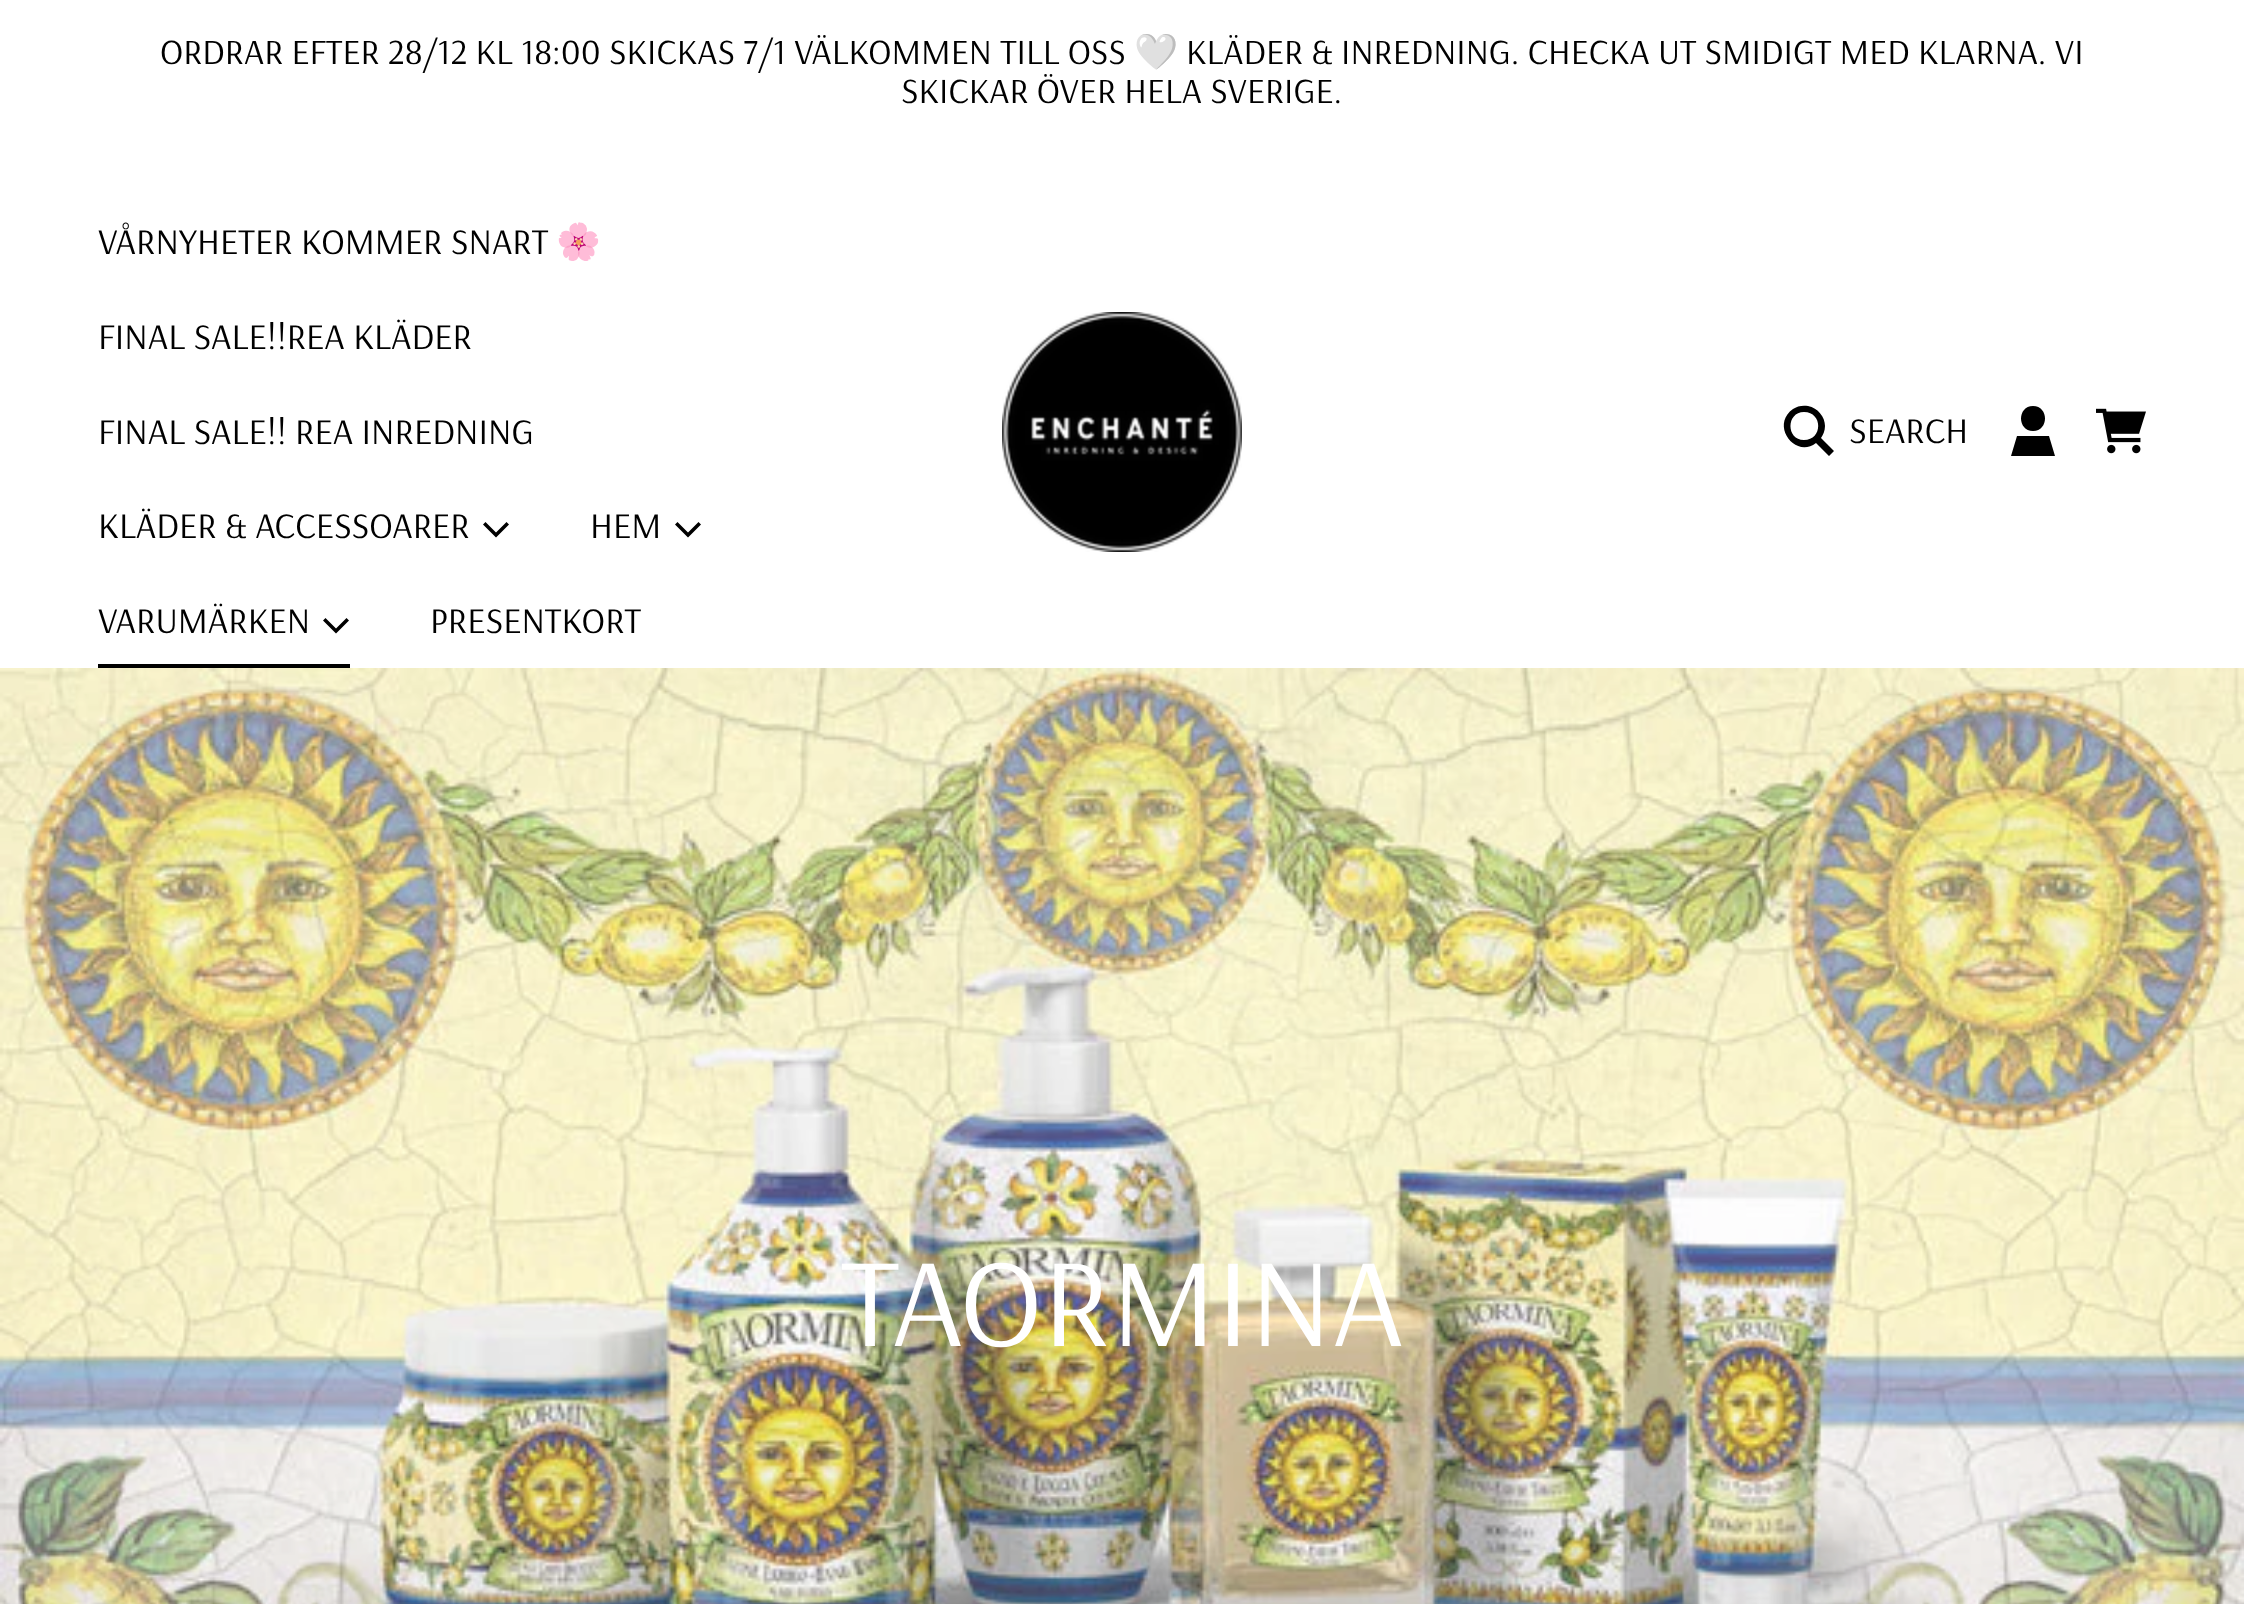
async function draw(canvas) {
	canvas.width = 2244;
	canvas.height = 1604;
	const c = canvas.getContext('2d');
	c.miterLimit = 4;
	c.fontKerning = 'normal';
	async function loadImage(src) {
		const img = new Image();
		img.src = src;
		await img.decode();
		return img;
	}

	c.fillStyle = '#fff';
	c.fillRect(0, 0, 2244, 1604);
	c.font = '35.5px Arsenal';
	c.fillStyle = '#000';
	c.fillText('ORDRAR EFTER 28/12 KL 18:00', 160, 64);
	c.fillText('SKICKAS 7/1 VÄLKOMMEN TILL OSS', 609, 64);
	c.font = '35.5px Noto Color Emoji';
	c.fillText('🤍', 1134, 64);
	c.font = '35.5px Arsenal';
	c.fillText('KLÄDER & INREDNING. CHECKA UT SMIDIGT MED KLARNA. VI', 1186, 64);
	c.fillText('SKICKAR ÖVER HELA SVERIGE.', 901, 103);
	c.font = '36px Arsenal';
	c.fillText('VÅRNYHETER KOMMER SNART', 98, 254);
	c.font = '36px Noto Color Emoji';
	c.fillText('🌸', 556, 254);
	c.font = '36px Arsenal';
	for (const [text, x, y] of [
		['FINAL SALE!!REA KLÄDER', 98, 349],
		['FINAL SALE!! REA INREDNING', 98, 444],
		['KLÄDER & ACCESSOARER', 98, 538],
	]) {
		c.fillText(text, x, y);
	}
	c.beginPath();
	c.moveTo(496, 537.5);
	c.lineTo(509, 524.5);
	c.lineTo(506.5, 522);
	c.lineTo(496, 532.5);
	c.lineTo(485.5, 522);
	c.lineTo(483, 524.5);
	c.closePath();
	c.fill();
	c.fillText('HEM', 590, 538);
	c.beginPath();
	c.moveTo(688, 537.5);
	c.lineTo(701, 524.5);
	c.lineTo(698.5, 522);
	c.lineTo(688, 532.5);
	c.lineTo(677.5, 522);
	c.lineTo(675, 524.5);
	c.closePath();
	c.fill();
	c.fillText('VARUMÄRKEN', 98, 633);
	c.beginPath();
	c.moveTo(336, 633.5);
	c.lineTo(349, 620.5);
	c.lineTo(346.5, 618);
	c.lineTo(336, 628.5);
	c.lineTo(325.5, 618);
	c.lineTo(323, 620.5);
	c.closePath();
	c.fill();
	c.fillRect(98, 664, 252, 4);
	c.fillText('PRESENTKORT', 430, 633);
	c.drawImage(await loadImage('img1.png'), 1002, 312, 240, 240);
	c.beginPath();
	c.moveTo(1825, 426);
	c.bezierCurveTo(1825, 431, 1823, 435, 1821, 438);
	c.lineTo(1834, 451);
	c.lineTo(1829, 456);
	c.lineTo(1816, 443);
	c.bezierCurveTo(1795, 459, 1770, 425, 1793, 409);
	c.bezierCurveTo(1797, 406, 1803, 405, 1808, 406);
	c.bezierCurveTo(1818, 408, 1825, 417, 1825, 426);
	c.closePath();
	c.moveTo(1804, 440);
	c.bezierCurveTo(1823, 440, 1823, 412, 1804, 412);
	c.bezierCurveTo(1786, 412, 1786, 440, 1804, 440);
	c.closePath();
	c.fill();
	c.fillText('SEARCH', 1849, 443);
	c.beginPath();
	c.moveTo(2033, 431);
	c.bezierCurveTo(2049, 431, 2049, 406, 2033, 406);
	c.bezierCurveTo(2017, 406, 2017, 431, 2033, 431);
	c.closePath();
	c.moveTo(2055, 456);
	c.lineTo(2049, 436);
	c.lineTo(2017, 436);
	c.lineTo(2011, 456);
	c.closePath();
	c.fill();
	c.drawImage(await loadImage('img2.png'), 2096, 408, 50, 46);
	c.drawImage(await loadImage('img3.png'), 0, 668, 2244, 936);
	c.font = '126.5px Arsenal';
	c.fillStyle = '#fff';
	c.fillText('TAORMINA', 841, 1346);
}

draw(document.querySelector('canvas'));
